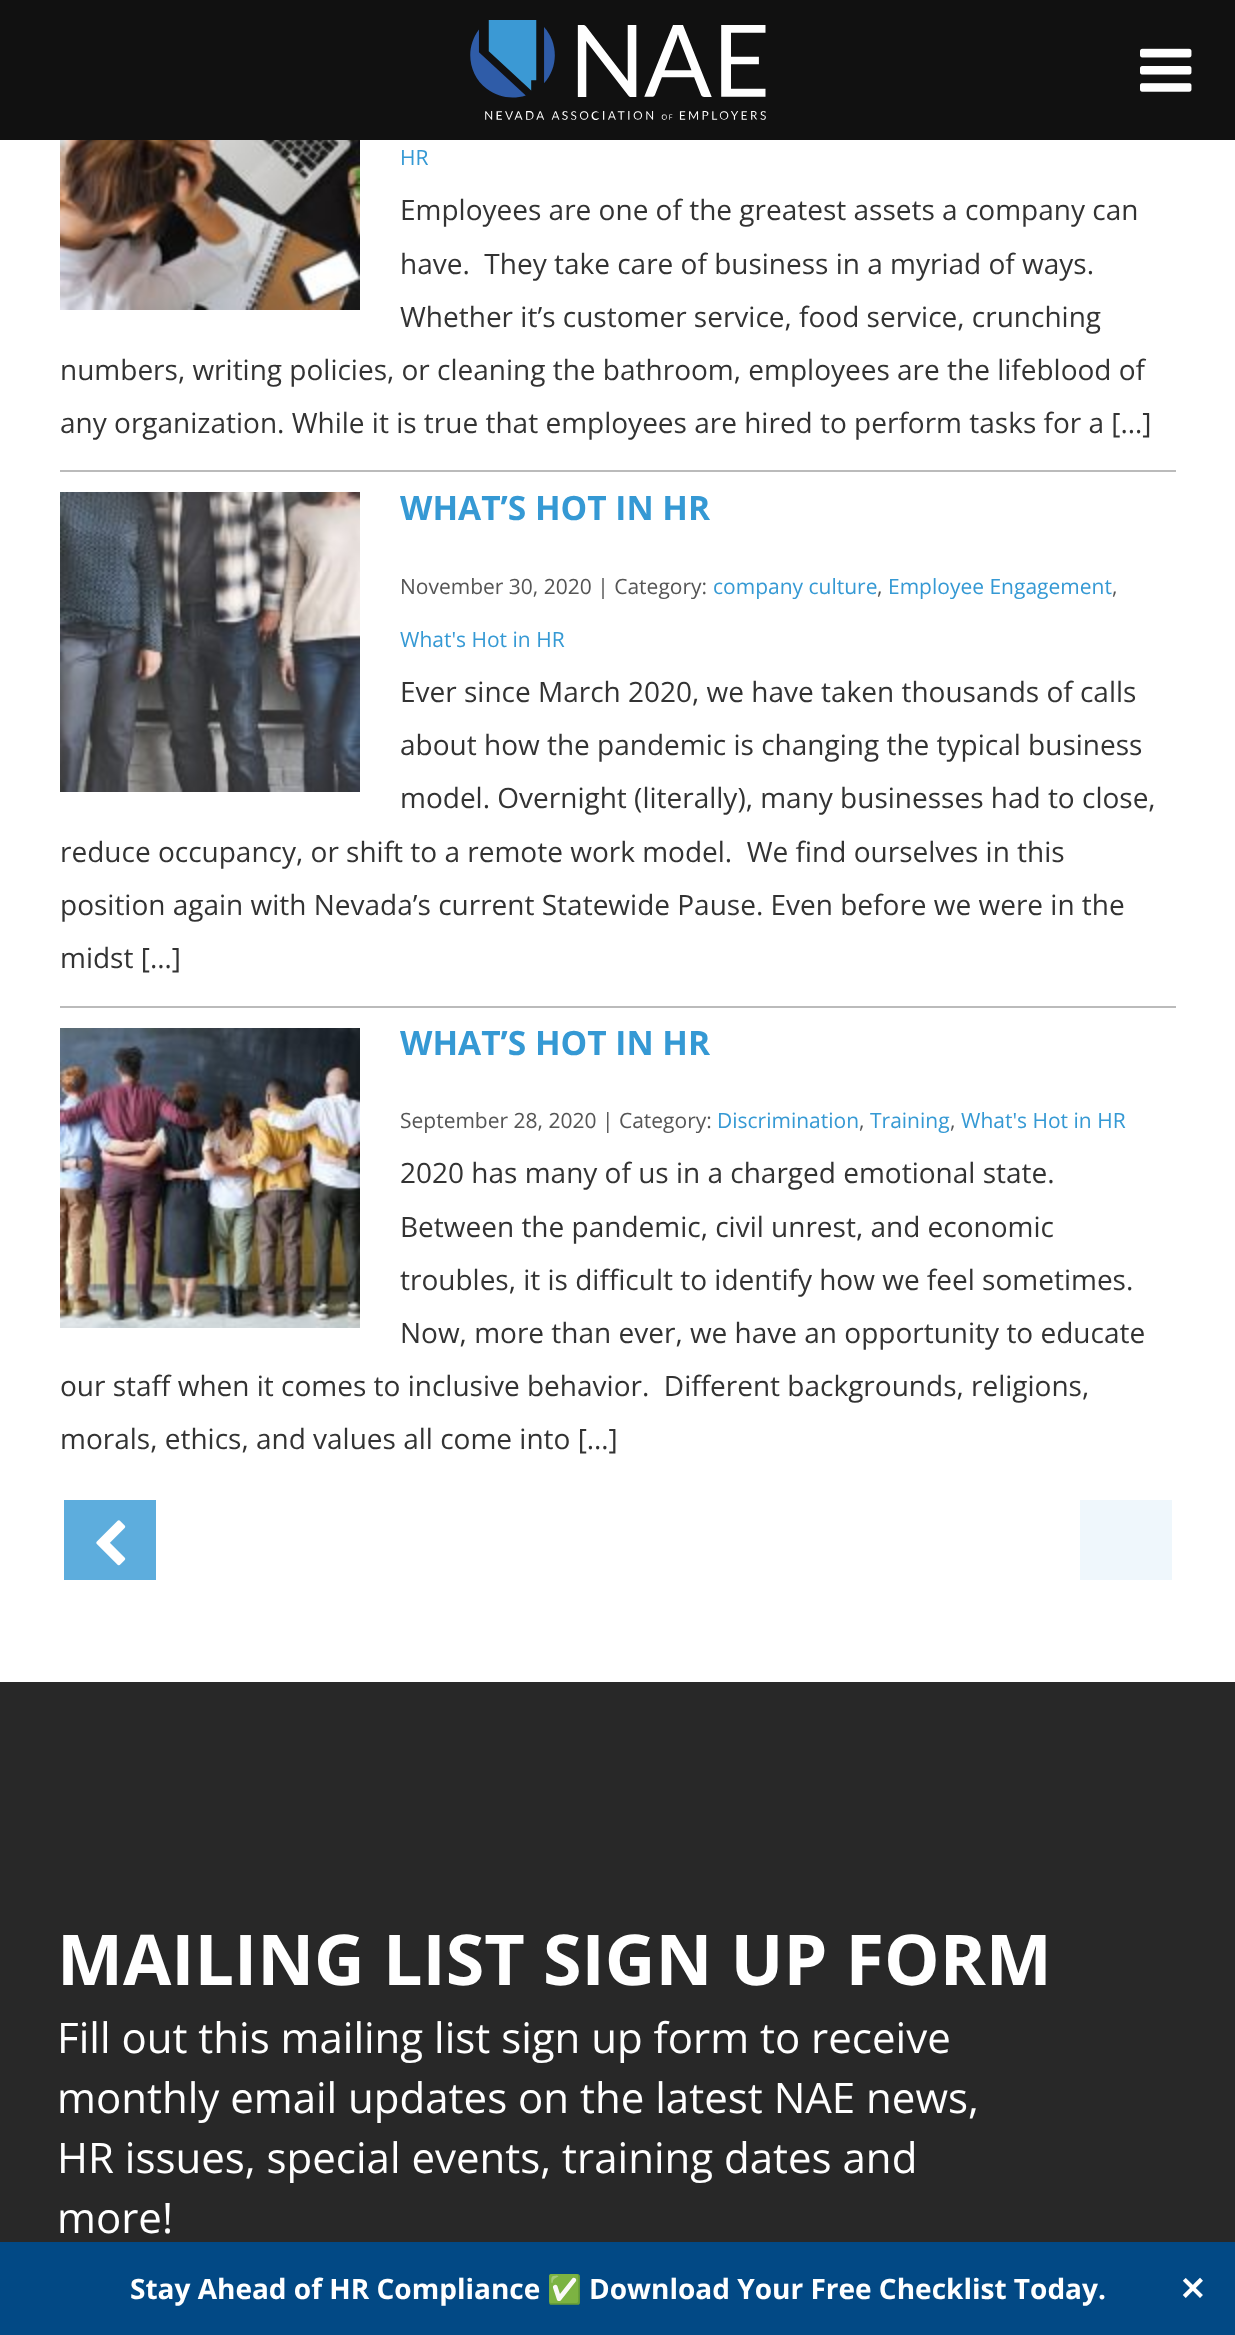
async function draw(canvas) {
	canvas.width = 1235;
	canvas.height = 2335;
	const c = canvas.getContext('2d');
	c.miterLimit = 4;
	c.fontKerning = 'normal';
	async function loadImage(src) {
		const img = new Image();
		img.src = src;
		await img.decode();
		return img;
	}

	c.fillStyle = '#fff';
	c.fillRect(0, 0, 1235, 2335);
	c.fillStyle = '#111';
	c.fillRect(0, 0, 1235, 140);
	c.drawImage(await loadImage('img1.png'), 470, 20, 296, 100);
	c.drawImage(await loadImage('img2.png'), 1140, 48, 52, 44);
	c.drawImage(await loadImage('img3.png'), 60, 140, 300, 170);
	c.font = '21px Open Sans';
	c.fillStyle = '#3599d4';
	c.fillText('HR', 400, 165);
	c.font = '28px Open Sans';
	c.fillStyle = '#333';
	for (const [text, x, y] of [
		['Employees are one of the greatest assets a company can', 400, 220],
		['have.  They take care of business in a myriad of ways.', 400, 274],
		['Whether it’s customer service, food service, crunching', 400, 327],
		['numbers, writing policies, or cleaning the bathroom, employees are the lifeblood of', 60, 380],
		['any organization. While it is true that employees are hired to perform tasks for a […]', 60, 433],
	]) {
		c.fillText(text, x, y);
	}
	c.fillStyle = '#bbb';
	c.fillRect(60, 470, 1116, 2);
	c.drawImage(await loadImage('img4.png'), 60, 492, 300, 300);
	c.font = 'bold 33.5px Open Sans';
	c.fillStyle = '#3599d4';
	c.fillText('WHAT’S HOT IN HR', 400, 520);
	c.font = '21px Open Sans';
	c.fillStyle = '#555';
	c.fillText('November 30, 2020 | Category:', 400, 594);
	c.fillStyle = '#3599d4';
	c.fillText('company culture', 713, 594);
	c.fillStyle = '#555';
	c.fillText(',', 877, 594);
	c.fillStyle = '#3599d4';
	c.fillText('Employee Engagement', 888, 594);
	c.fillStyle = '#555';
	c.fillText(',', 1112, 594);
	c.fillStyle = '#3599d4';
	c.fillText('What\'s Hot in HR', 400, 647);
	c.font = '28px Open Sans';
	c.fillStyle = '#333';
	for (const [text, x, y] of [
		['Ever since March 2020, we have taken thousands of calls', 400, 702],
		['about how the pandemic is changing the typical business', 400, 755],
		['model. Overnight (literally), many businesses had to close,', 400, 808],
		['reduce occupancy, or shift to a remote work model.  We find ourselves in this', 60, 862],
		['position again with Nevada’s current Statewide Pause. Even before we were in the', 60, 915],
		['midst […]', 60, 968],
	]) {
		c.fillText(text, x, y);
	}
	c.fillStyle = '#bbb';
	c.fillRect(60, 1006, 1116, 2);
	c.drawImage(await loadImage('img5.png'), 60, 1028, 300, 300);
	c.font = 'bold 33.5px Open Sans';
	c.fillStyle = '#3599d4';
	c.fillText('WHAT’S HOT IN HR', 400, 1055);
	c.font = '21px Open Sans';
	c.fillStyle = '#555';
	c.fillText('September 28, 2020 | Category:', 400, 1128);
	c.fillStyle = '#3599d4';
	c.fillText('Discrimination', 717, 1128);
	c.fillStyle = '#555';
	c.fillText(',', 859, 1128);
	c.fillStyle = '#3599d4';
	c.fillText('Training', 870, 1128);
	c.fillStyle = '#555';
	c.fillText(',', 950, 1128);
	c.fillStyle = '#3599d4';
	c.fillText('What\'s Hot in HR', 961, 1128);
	c.font = '28px Open Sans';
	c.fillStyle = '#333';
	for (const [text, x, y] of [
		['2020 has many of us in a charged emotional state.', 400, 1183],
		['Between the pandemic, civil unrest, and economic', 400, 1237],
		['troubles, it is difficult to identify how we feel sometimes.', 400, 1290],
		['Now, more than ever, we have an opportunity to educate', 400, 1343],
		['our staff when it comes to inclusive behavior.  Different backgrounds, religions,', 60, 1396],
		['morals, ethics, and values all come into […]', 60, 1449],
	]) {
		c.fillText(text, x, y);
	}
	c.fillStyle = '#5daddd';
	c.fillRect(64, 1500, 92, 80);
	c.drawImage(await loadImage('img6.png'), 96, 1520, 30, 46);
	c.fillStyle = '#eff7fc';
	c.fillRect(1080, 1500, 92, 80);
	c.fillStyle = '#282828';
	c.fillRect(0, 1682, 1235, 560);
	c.font = 'bold 70px Open Sans';
	c.fillStyle = '#fff';
	c.fillText('MAILING LIST SIGN UP FORM', 57, 1985);
	c.font = '42px Open Sans';
	for (const [text, x, y] of [
		['Fill out this mailing list sign up form to receive', 57, 2053],
		['monthly email updates on the latest NAE news,', 57, 2113],
		['HR issues, special events, training dates and', 57, 2173],
		['more!', 57, 2233],
	]) {
		c.fillText(text, x, y);
	}
	c.fillStyle = '#024985';
	c.fillRect(0, 2242, 1235, 93);
	c.font = 'bold 28px Open Sans';
	c.fillStyle = '#fff';
	c.fillText('Stay Ahead of HR Compliance', 130, 2299);
	c.font = 'bold 28px Noto Color Emoji';
	c.fillText('✅', 547, 2299);
	c.font = 'bold 28px Open Sans';
	c.fillText('Download Your Free Checklist Today.', 589, 2299);
	c.font = 'bold 32px DejaVu Sans';
	c.fillText('✕', 1179, 2300);
}

draw(document.querySelector('canvas'));
